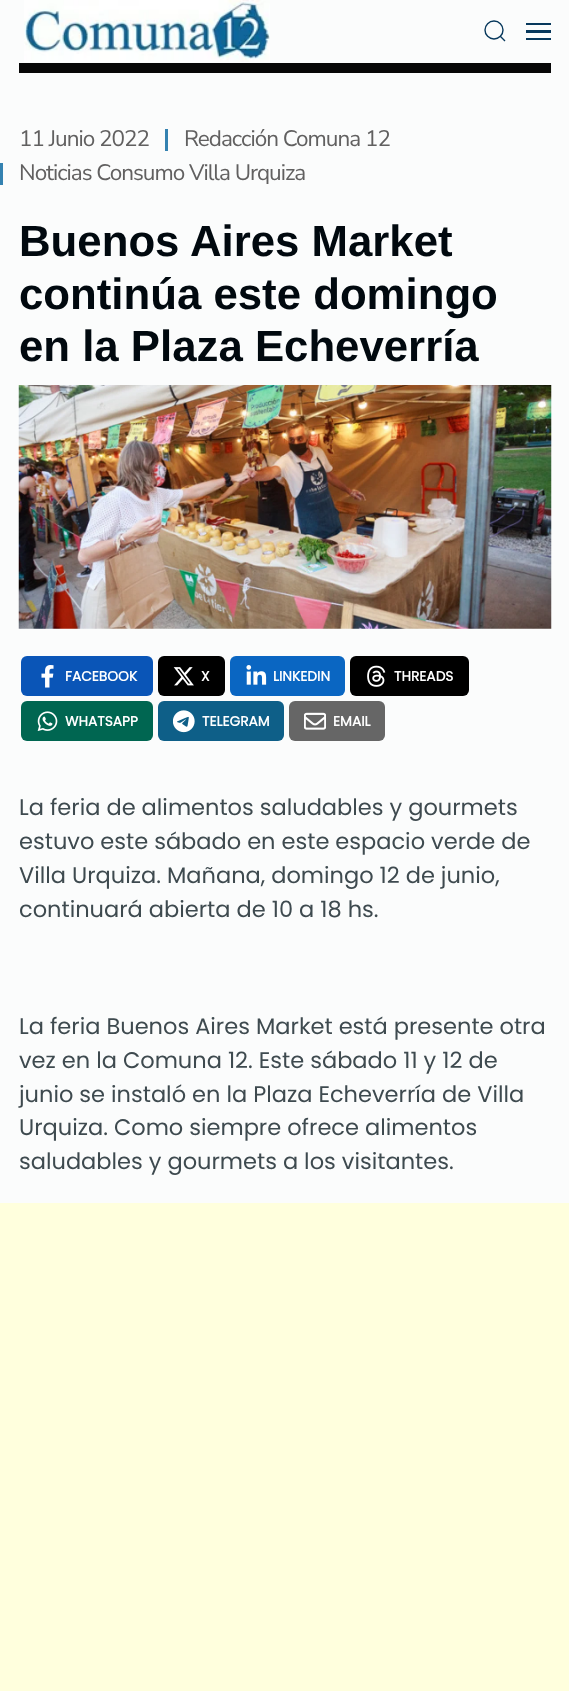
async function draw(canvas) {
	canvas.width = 569;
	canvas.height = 1691;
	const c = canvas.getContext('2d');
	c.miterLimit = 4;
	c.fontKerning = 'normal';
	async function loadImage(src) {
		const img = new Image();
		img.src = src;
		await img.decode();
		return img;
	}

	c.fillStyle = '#fbfcfc';
	c.fillRect(0, 0, 569, 1691);
	c.fillStyle = '#070707';
	c.fillRect(19, 63, 532, 10);
	c.drawImage(await loadImage('img1.png'), 24, 0, 246, 62);
	c.beginPath();
	c.arc(494, 30, 9, 0, 2 * Math.PI);
	c.strokeStyle = '#07385c';
	c.lineWidth = 1.4;
	c.stroke();
	c.beginPath();
	c.moveTo(500, 36);
	c.lineTo(505, 41);
	c.closePath();
	c.stroke();
	for (const [x, y, w, h, color] of [
		[526, 23, 25, 2, '#07385c'],
		[526, 30, 25, 3, '#07385c'],
		[526, 38, 25, 2, '#07385c'],
	]) {
		c.fillStyle = color;
		c.fillRect(x, y, w, h);
	}
	c.letterSpacing = '-1px';
	c.font = '200 22.5px Nunito Sans';
	c.fillStyle = '#616060';
	c.fillText('11 Junio 2022', 19, 146);
	c.fillStyle = '#3482b1';
	c.fillRect(165, 129, 3, 22);
	c.fillStyle = '#616060';
	c.fillText('Redacción Comuna 12', 184, 146);
	c.fillStyle = '#3482b1';
	c.fillRect(0, 163, 3, 22);
	c.fillStyle = '#616060';
	c.fillText('Noticias Consumo Villa Urquiza', 19, 180);
	c.letterSpacing = '0px';
	c.font = 'bold 43.75px Liberation Sans';
	c.fillStyle = '#01090f';
	for (const [text, x, y] of [
		['Buenos Aires Market', 19, 256],
		['continúa este domingo', 19, 309],
		['en la Plaza Echeverría', 19, 361],
	]) {
		c.fillText(text, x, y);
	}
	c.drawImage(await loadImage('img2.png'), 18, 385, 534, 244);
	c.fillStyle = '#0a55b7';
	c.beginPath();
	c.roundRect(21, 656, 132, 40, 6);
	c.fill();
	c.drawImage(await loadImage('img3.png'), 41, 665, 13, 23);
	c.font = 'bold 13.75px Poppins';
	c.fillStyle = '#fff';
	c.fillText('FACEBOOK', 65, 681);
	c.fillStyle = '#000';
	c.beginPath();
	c.roundRect(158, 656, 67, 40, 6);
	c.fill();
	c.drawImage(await loadImage('img4.png'), 173, 667, 21, 19);
	c.fillStyle = '#fff';
	c.fillText('X', 201, 681);
	c.fillStyle = '#0a66c2';
	c.beginPath();
	c.roundRect(230, 656, 115, 40, 6);
	c.fill();
	c.drawImage(await loadImage('img5.png'), 246, 665, 21, 20);
	c.fillStyle = '#fff';
	c.fillText('LINKEDIN', 273, 681);
	c.fillStyle = '#000';
	c.beginPath();
	c.roundRect(350, 656, 119, 40, 6);
	c.fill();
	c.drawImage(await loadImage('img6.png'), 367, 665, 19, 22);
	c.fillStyle = '#fff';
	c.fillText('THREADS', 394, 681);
	c.fillStyle = '#006651';
	c.beginPath();
	c.roundRect(21, 701, 132, 40, 6);
	c.fill();
	c.drawImage(await loadImage('img7.png'), 37, 711, 21, 20);
	c.fillStyle = '#fff';
	c.fillText('WHATSAPP', 65, 726);
	c.fillStyle = '#0e5f88';
	c.beginPath();
	c.roundRect(158, 701, 126, 40, 6);
	c.fill();
	c.drawImage(await loadImage('img8.png'), 173, 710, 22, 23);
	c.fillStyle = '#fff';
	c.fillText('TELEGRAM', 202, 726);
	c.fillStyle = '#666';
	c.beginPath();
	c.roundRect(289, 701, 96, 40, 6);
	c.fill();
	c.drawImage(await loadImage('img9.png'), 304, 712, 22, 18);
	c.fillStyle = '#fff';
	c.fillText('EMAIL', 333, 726);
	c.font = '22.5px Poppins';
	c.fillStyle = '#3e4a4f';
	for (const [text, x, y] of [
		['La feria de alimentos saludables y gourmets', 19, 815],
		['estuvo este sábado en este espacio verde de', 19, 849],
		['Villa Urquiza. Mañana, domingo 12 de junio,', 19, 883],
		['continuará abierta de 10 a 18 hs.', 19, 917],
		['La feria Buenos Aires Market está presente otra', 19, 1034],
		['vez en la Comuna 12. Este sábado 11 y 12 de', 19, 1068],
		['junio se instaló en la Plaza Echeverría de Villa', 19, 1102],
		['Urquiza. Como siempre ofrece alimentos', 19, 1135],
		['saludables y gourmets a los visitantes.', 19, 1169],
	]) {
		c.fillText(text, x, y);
	}
	c.fillStyle = '#ffd';
	c.fillRect(0, 1203, 569, 488);
}

draw(document.querySelector('canvas'));
